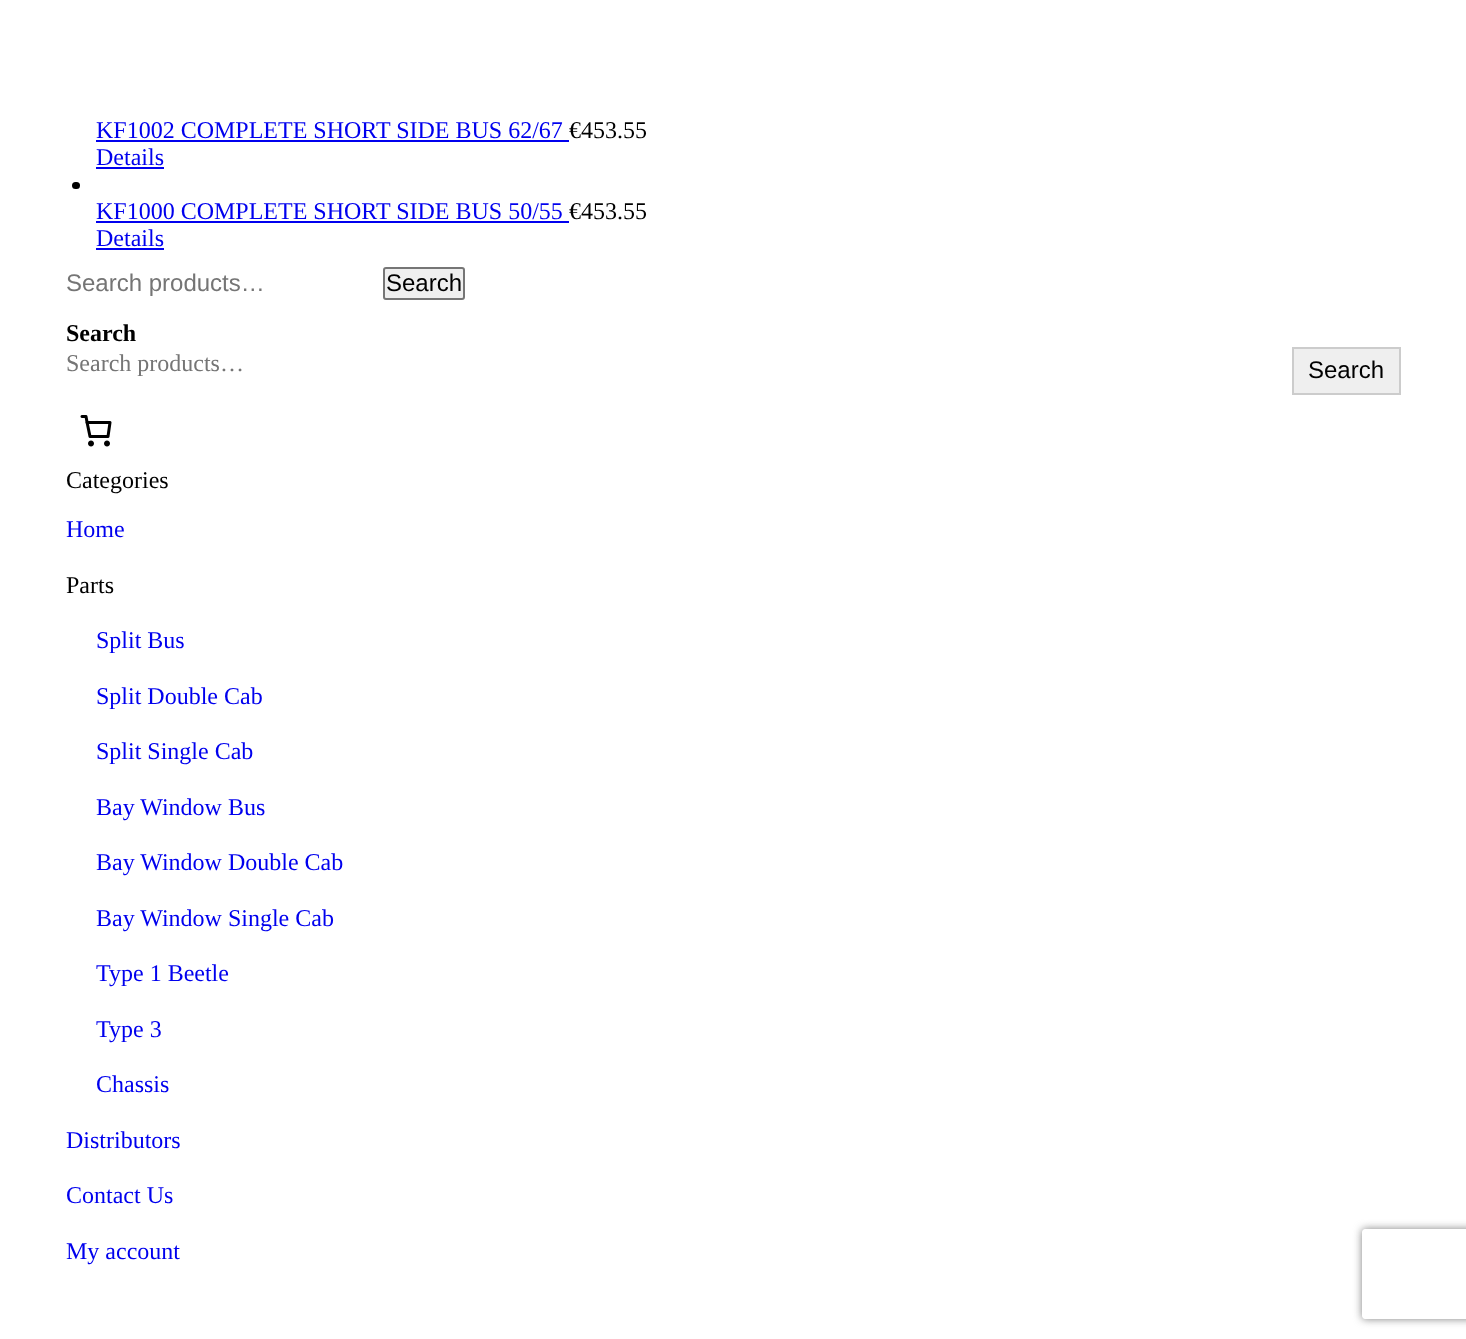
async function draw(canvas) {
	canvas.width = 1466;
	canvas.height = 1339;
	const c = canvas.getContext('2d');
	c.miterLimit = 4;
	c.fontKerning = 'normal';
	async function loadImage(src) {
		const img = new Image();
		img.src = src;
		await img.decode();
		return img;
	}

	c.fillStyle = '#fff';
	c.fillRect(0, 0, 1466, 1339);
	c.font = '24px Liberation Serif';
	c.fillStyle = '#00e';
	c.fillText('KF1002 COMPLETE SHORT SIDE BUS 62/67', 96, 138);
	c.fillRect(96, 140, 473, 2);
	c.fillStyle = '#000';
	c.fillText('€453.55', 569, 138);
	c.fillStyle = '#00e';
	c.fillText('Details', 96, 165);
	c.fillRect(96, 167, 68, 2);
	c.fillStyle = '#000';
	c.beginPath();
	c.roundRect(72, 182, 8, 7, 3.5);
	c.fill();
	c.fillStyle = '#00e';
	c.fillText('KF1000 COMPLETE SHORT SIDE BUS 50/55', 96, 219);
	c.fillRect(96, 221, 473, 2);
	c.fillStyle = '#000';
	c.fillText('€453.55', 569, 219);
	c.fillStyle = '#00e';
	c.fillText('Details', 96, 246);
	c.fillRect(96, 248, 68, 2);
	c.font = '24px Liberation Sans';
	c.fillStyle = '#757575';
	c.fillText('Search products…', 66, 291);
	c.fillStyle = '#efefef';
	c.beginPath();
	c.roundRect(384, 268, 80, 31, 2);
	c.fill();
	c.strokeStyle = '#767676';
	c.lineWidth = 2;
	c.stroke();
	c.fillStyle = '#000';
	c.fillText('Search', 386, 291);
	c.font = 'bold 24px Liberation Serif';
	c.fillText('Search', 66, 341);
	c.font = '24px Liberation Serif';
	c.fillStyle = '#757575';
	c.fillText('Search products…', 66, 371);
	c.fillStyle = '#efefef';
	c.beginPath();
	c.rect(1293, 348, 107, 46);
	c.fill();
	c.strokeStyle = '#ccc';
	c.stroke();
	c.font = '24px Liberation Sans';
	c.fillStyle = '#000';
	c.fillText('Search', 1308, 378);
	c.drawImage(await loadImage('img1.png'), 80, 415, 32, 32);
	c.font = '24px Liberation Serif';
	c.fillText('Categories', 66, 488);
	c.fillStyle = '#00e';
	c.fillText('Home', 66, 537);
	c.fillStyle = '#000';
	c.fillText('Parts', 66, 593);
	c.fillStyle = '#00e';
	for (const [text, x, y] of [
		['Split Bus', 96, 648],
		['Split Double Cab', 96, 704],
		['Split Single Cab', 96, 759],
		['Bay Window Bus', 96, 815],
		['Bay Window Double Cab', 96, 870],
		['Bay Window Single Cab', 96, 926],
		['Type 1 Beetle', 96, 981],
		['Type 3', 96, 1037],
		['Chassis', 96, 1092],
		['Distributors', 66, 1148],
		['Contact Us', 66, 1203],
		['My account', 66, 1259],
	]) {
		c.fillText(text, x, y);
	}
	c.save();
	c.beginPath();
	c.moveTo(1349, 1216);
	c.lineTo(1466, 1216);
	c.lineTo(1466, 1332);
	c.lineTo(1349, 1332);
	c.closePath();
	c.moveTo(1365, 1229);
	c.lineTo(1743, 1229);
	c.bezierCurveTo(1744.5, 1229, 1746, 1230.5, 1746, 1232);
	c.lineTo(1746, 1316);
	c.bezierCurveTo(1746, 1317.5, 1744.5, 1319, 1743, 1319);
	c.lineTo(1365, 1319);
	c.bezierCurveTo(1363.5, 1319, 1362, 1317.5, 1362, 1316);
	c.lineTo(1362, 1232);
	c.bezierCurveTo(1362, 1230.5, 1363.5, 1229, 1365, 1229);
	c.closePath();
	c.clip('evenodd');
	c.fillStyle = '#808080';
	c.filter = 'blur(4px)';
	c.beginPath();
	c.roundRect(1362, 1229, 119, 90, 3);
	c.fill();
	c.filter = 'none';
	c.restore();
}

draw(document.querySelector('canvas'));
